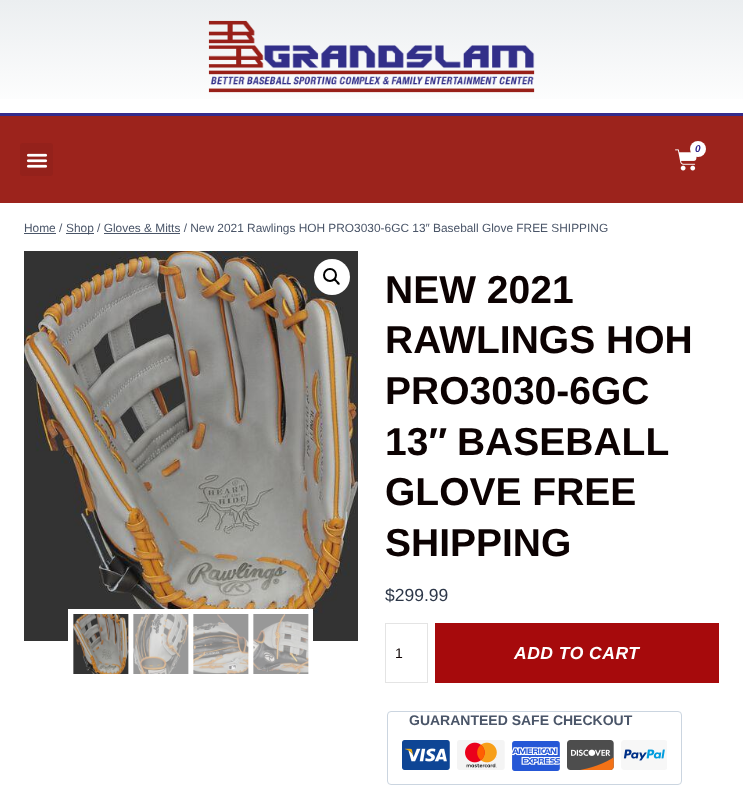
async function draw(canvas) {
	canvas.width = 743;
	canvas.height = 808;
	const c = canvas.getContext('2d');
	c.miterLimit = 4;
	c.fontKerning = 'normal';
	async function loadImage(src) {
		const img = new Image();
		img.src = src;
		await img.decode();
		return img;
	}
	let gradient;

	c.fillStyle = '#fff';
	c.fillRect(0, 0, 743, 808);
	gradient = c.createLinearGradient(372, 0, 372, 113);
	gradient.addColorStop(0, '#ebeef0');
	gradient.addColorStop(1, '#fff');
	c.fillStyle = gradient;
	c.fillRect(0, 0, 743, 99);
	c.drawImage(await loadImage('img1.png'), 208, 20, 327, 73);
	c.fillStyle = '#9c231c';
	c.fillRect(0, 116, 743, 87);
	c.fillStyle = '#342c8c';
	c.fillRect(0, 113, 743, 3);
	c.fillStyle = '#94211b';
	c.beginPath();
	c.roundRect(20, 143, 33, 33, 3);
	c.fill();
	c.drawImage(await loadImage('img2.png'), 26, 153, 22, 15);
	c.drawImage(await loadImage('img3.png'), 675, 149, 22, 22);
	c.fillStyle = '#fff';
	c.beginPath();
	c.arc(698, 149, 8, 0, 2 * Math.PI);
	c.fill();
	c.letterSpacing = '0.5px';
	c.font = 'italic bold 10px Liberation Sans';
	c.fillStyle = '#342890';
	c.fillText('0', 695, 152);
	c.letterSpacing = '0px';
	c.font = '11.9px Liberation Sans';
	c.fillStyle = '#4a5568';
	c.fillText('Home /', 24, 232);
	c.fillRect(24, 233, 32, 1);
	c.fillRect(66, 233, 28, 1);
	c.fillText('Shop / Gloves & Mitts / New 2021 Rawlings HOH PRO3030-6GC 13″ Baseball Glove FREE SHIPPING', 66, 232);
	c.fillRect(104, 233, 76, 1);
	c.drawImage(await loadImage('img4.png'), 24, 251, 334, 390);
	c.fillStyle = '#fff';
	c.beginPath();
	c.arc(332, 277, 18, 0, 2 * Math.PI);
	c.fill();
	c.beginPath();
	c.arc(330, 275, 6, 0, 2 * Math.PI);
	c.strokeStyle = '#000';
	c.lineWidth = 2;
	c.stroke();
	c.fillStyle = '#000';
	c.beginPath();
	c.moveTo(334, 278.5);
	c.bezierCurveTo(335, 277.5, 336.5, 280, 337.5, 281);
	c.bezierCurveTo(338, 281.5, 340.5, 283, 339.5, 284.5);
	c.bezierCurveTo(338, 285.5, 336.5, 283, 336, 282);
	c.bezierCurveTo(335.5, 281.5, 332.5, 280, 334, 278.5);
	c.closePath();
	c.fill();
	c.fillStyle = '#fff';
	c.fillRect(68, 609, 245, 32);
	c.drawImage(await loadImage('img5.png'), 73, 614, 56, 60);
	c.drawImage(await loadImage('img6.png'), 133, 614, 56, 60);
	c.drawImage(await loadImage('img7.png'), 193, 614, 56, 60);
	c.drawImage(await loadImage('img8.png'), 253, 614, 56, 60);
	c.font = 'bold 39px Liberation Sans';
	c.fillStyle = '#0c0202';
	for (const [text, x, y] of [
		['NEW 2021', 385, 303],
		['RAWLINGS HOH', 385, 353],
		['PRO3030-6GC', 385, 404],
	]) {
		c.fillText(text, x, y);
	}
	c.wordSpacing = '-1px';
	c.fillText('13″ BASEBALL', 385, 455);
	c.wordSpacing = '0px';
	c.fillText('GLOVE FREE', 385, 505);
	c.fillText('SHIPPING', 385, 556);
	c.font = '17.5px Liberation Sans';
	c.fillStyle = '#2d3748';
	c.fillText('$299.99', 385, 601);
	c.strokeStyle = '#e4e4e4';
	c.lineWidth = 1;
	c.strokeRect(385.5, 623.5, 42, 59);
	c.font = '14px Liberation Sans';
	c.fillStyle = '#0c0202';
	c.fillText('1', 395, 658);
	c.fillStyle = '#a60a0c';
	c.fillRect(435, 623, 284, 60);
	c.letterSpacing = '0.5px';
	c.font = 'italic bold 17.5px Liberation Sans';
	c.fillStyle = '#fff';
	c.fillText('ADD TO CART', 514, 659);
	c.beginPath();
	c.roundRect(387.5, 711.5, 294, 73, 3.5);
	c.strokeStyle = '#cbd5e0';
	c.stroke();
	c.letterSpacing = '0px';
	c.font = 'bold 14px Liberation Sans';
	c.fillStyle = '#4a5568';
	c.fillText('GUARANTEED SAFE CHECKOUT', 409, 725);
	c.drawImage(await loadImage('img9.png'), 402, 740, 48, 30);
	c.drawImage(await loadImage('img10.png'), 457, 740, 48, 30);
	c.drawImage(await loadImage('img11.png'), 512, 741, 48, 30);
	c.drawImage(await loadImage('img12.png'), 567, 740, 47, 30);
	c.drawImage(await loadImage('img13.png'), 621, 740, 46, 30);
}

draw(document.querySelector('canvas'));
